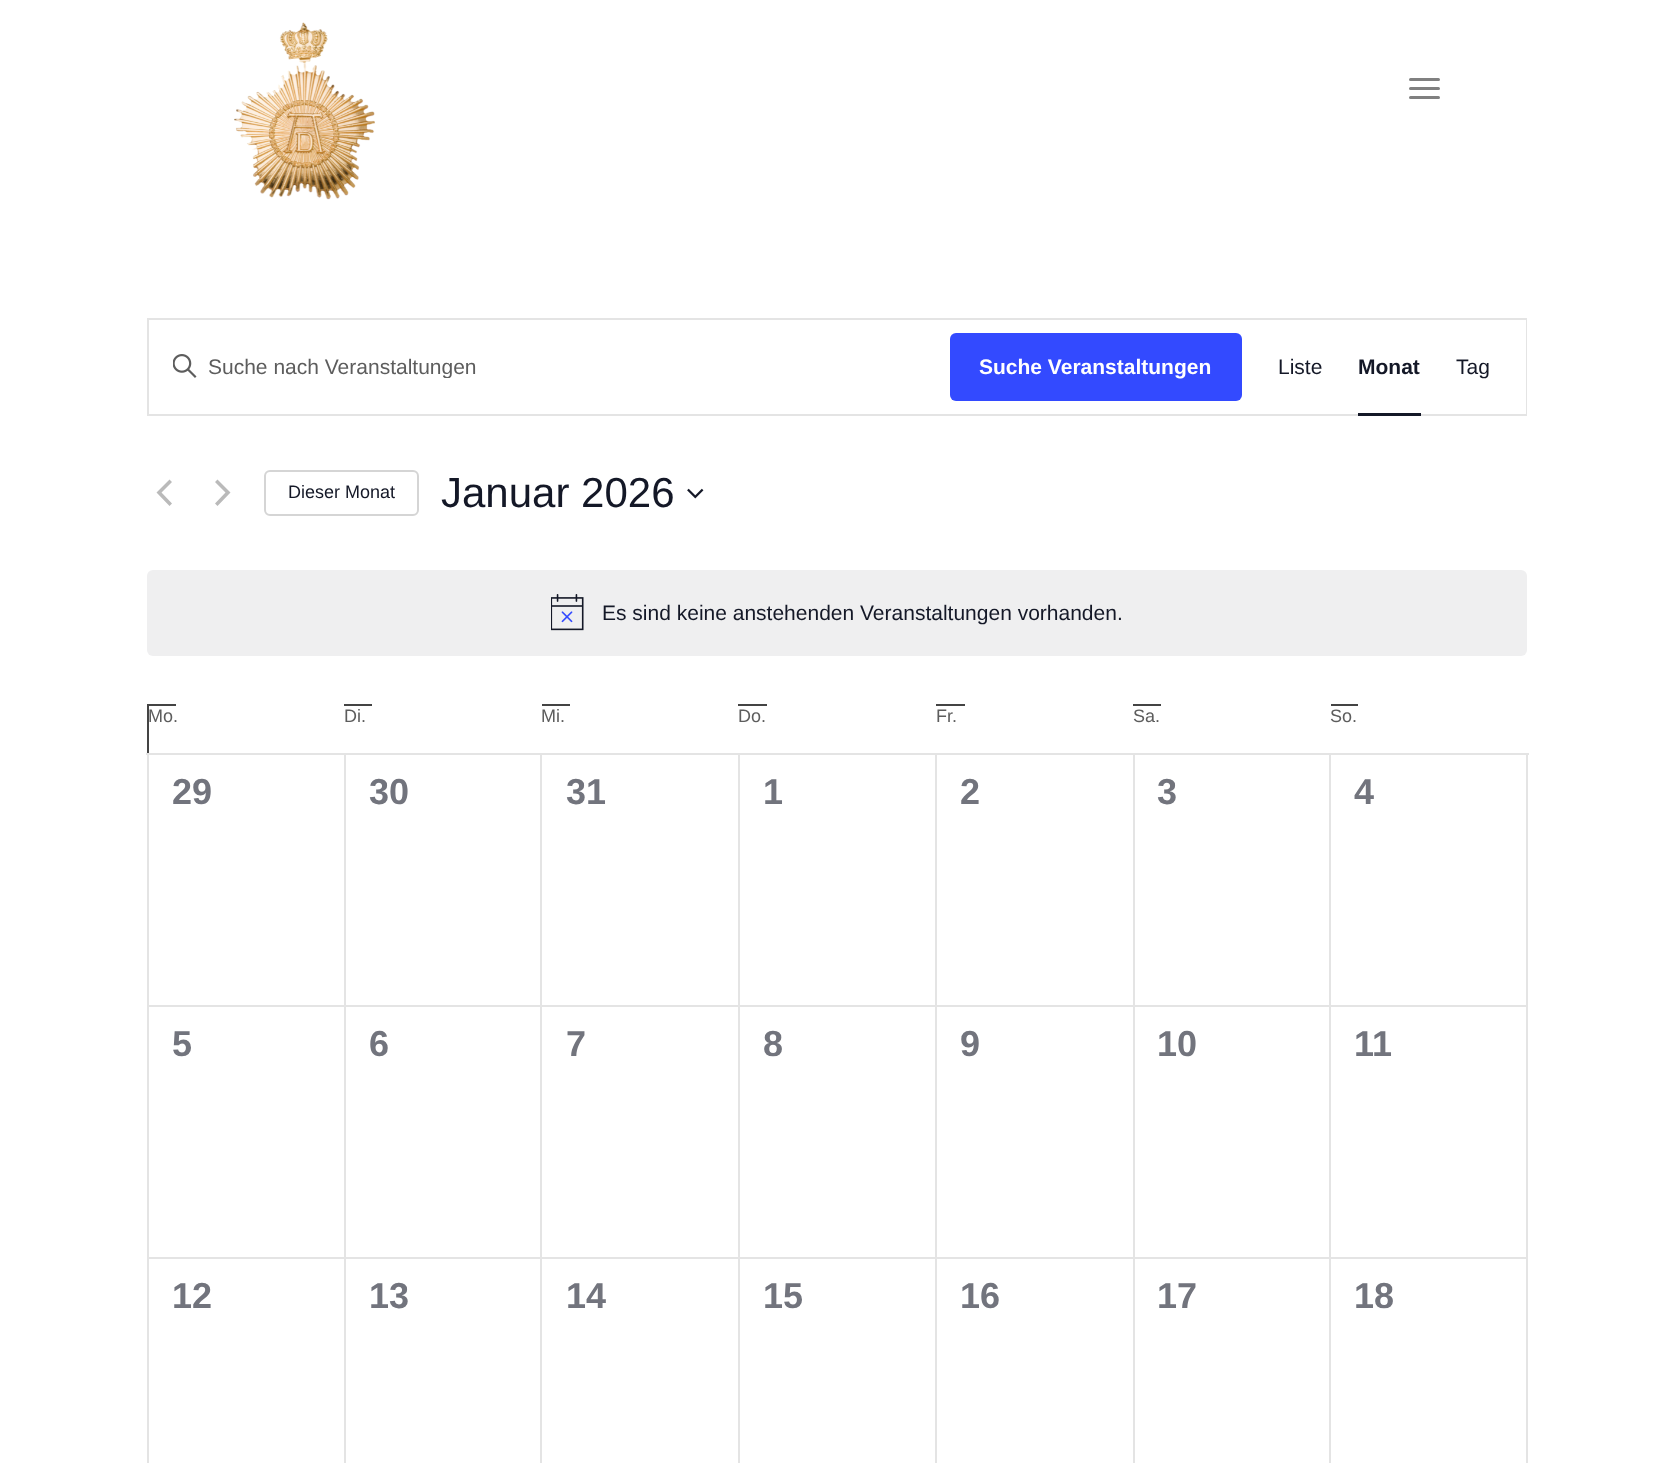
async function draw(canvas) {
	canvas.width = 1673;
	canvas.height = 1463;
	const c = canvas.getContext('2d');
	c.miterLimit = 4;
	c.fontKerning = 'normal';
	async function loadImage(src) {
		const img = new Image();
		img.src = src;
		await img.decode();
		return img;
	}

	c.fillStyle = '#fff';
	c.fillRect(0, 0, 1673, 1463);
	c.drawImage(await loadImage('img1.png'), 234, 22, 141, 178);
	c.fillStyle = '#808080';
	c.beginPath();
	c.roundRect(1409, 87, 31, 3, 1.5);
	c.fill();
	c.beginPath();
	c.roundRect(1409, 78, 31, 3, 1.5);
	c.fill();
	c.beginPath();
	c.roundRect(1409, 96, 31, 3, 1.5);
	c.fill();
	c.strokeStyle = '#e4e4e4';
	c.lineWidth = 2;
	c.strokeRect(148, 319, 1378, 96);
	c.drawImage(await loadImage('img2.png'), 173, 354, 24, 24);
	c.save();
	c.beginPath();
	c.rect(209, 354, 711, 24);
	c.clip();
	c.font = '21px Liberation Sans';
	c.fillStyle = '#5d5d5d';
	c.fillText('Suche nach Veranstaltungen', 208, 374);
	c.restore();
	c.fillStyle = '#334aff';
	c.beginPath();
	c.roundRect(950, 333, 292, 68, 6);
	c.fill();
	c.font = 'bold 21px Liberation Sans';
	c.fillStyle = '#fff';
	c.fillText('Suche Veranstaltungen', 979, 374);
	c.fillRect(1525, 320, 1, 94);
	c.font = '21px Liberation Sans';
	c.fillStyle = '#141827';
	c.fillText('Liste', 1278, 374);
	c.font = 'bold 21px Liberation Sans';
	c.fillText('Monat', 1358, 374);
	c.fillRect(1358, 413, 63, 3);
	c.font = '21px Liberation Sans';
	c.fillText('Tag', 1456, 374);
	c.fillStyle = '#bababa';
	c.beginPath();
	c.moveTo(172, 503.5);
	c.lineTo(169.5, 506);
	c.lineTo(156.5, 492.5);
	c.lineTo(169.5, 479.5);
	c.lineTo(172, 482);
	c.lineTo(161.5, 492.5);
	c.closePath();
	c.fill();
	c.beginPath();
	c.moveTo(215, 482);
	c.lineTo(217.5, 479.5);
	c.lineTo(230.5, 492.5);
	c.lineTo(217.5, 506);
	c.lineTo(215, 503.5);
	c.lineTo(225.5, 492.5);
	c.closePath();
	c.fill();
	c.beginPath();
	c.roundRect(265, 471, 153, 44, 5);
	c.strokeStyle = '#d5d5d5';
	c.stroke();
	c.font = '18px Liberation Sans';
	c.fillStyle = '#141827';
	c.fillText('Dieser Monat', 288, 498);
	c.font = '42px Liberation Sans';
	c.fillText('Januar 2026', 441, 507);
	c.drawImage(await loadImage('img3.png'), 687, 488, 17, 11);
	c.fillStyle = '#efeff0';
	c.beginPath();
	c.roundRect(147, 570, 1380, 86, 6);
	c.fill();
	c.drawImage(await loadImage('img4.png'), 551, 594, 33, 37);
	c.font = '21px Liberation Sans';
	c.fillStyle = '#141827';
	c.fillText('Es sind keine anstehenden Veranstaltungen vorhanden.', 602, 620);
	c.fillStyle = '#444';
	c.fillRect(147, 704, 29, 2);
	c.fillRect(147, 704, 2, 49);
	c.font = '18px Liberation Sans';
	c.fillStyle = '#5d5d5d';
	c.fillText('Mo.', 148, 722);
	c.fillStyle = '#444';
	c.fillRect(344, 704, 28, 2);
	c.fillStyle = '#5d5d5d';
	c.fillText('Di.', 344, 722);
	c.fillStyle = '#444';
	c.fillRect(542, 704, 28, 2);
	c.fillStyle = '#5d5d5d';
	c.fillText('Mi.', 541, 722);
	c.fillStyle = '#444';
	c.fillRect(738, 704, 29, 2);
	c.fillStyle = '#5d5d5d';
	c.fillText('Do.', 738, 722);
	c.fillStyle = '#444';
	c.fillRect(936, 704, 29, 2);
	c.fillStyle = '#5d5d5d';
	c.fillText('Fr.', 936, 722);
	c.fillStyle = '#444';
	c.fillRect(1133, 704, 28, 2);
	c.fillStyle = '#5d5d5d';
	c.fillText('Sa.', 1133, 722);
	c.fillStyle = '#444';
	c.fillRect(1331, 704, 27, 2);
	c.fillStyle = '#5d5d5d';
	c.fillText('So.', 1330, 722);
	for (const [x, y, w, h, color] of [
		[146, 753, 1383, 2, '#e4e4e4'],
		[147, 755, 2, 708, '#e4e4e4'],
		[344, 755, 2, 708, '#e4e4e4'],
		[149, 1005, 196, 2, '#e4e4e4'],
	]) {
		c.fillStyle = color;
		c.fillRect(x, y, w, h);
	}
	c.font = 'bold 36px Liberation Sans';
	c.fillStyle = '#72747d';
	c.fillText('29', 172, 804);
	c.fillStyle = '#e4e4e4';
	c.fillRect(540, 755, 2, 708);
	c.fillRect(345, 1005, 197, 2);
	c.fillStyle = '#72747d';
	c.fillText('30', 369, 804);
	c.fillStyle = '#e4e4e4';
	c.fillRect(738, 755, 2, 708);
	c.fillRect(542, 1005, 198, 2);
	c.fillStyle = '#72747d';
	c.fillText('31', 566, 804);
	c.fillStyle = '#e4e4e4';
	c.fillRect(935, 755, 2, 708);
	c.fillRect(740, 1005, 196, 2);
	c.fillStyle = '#72747d';
	c.fillText('1', 763, 804);
	c.fillStyle = '#e4e4e4';
	c.fillRect(1133, 755, 2, 708);
	c.fillRect(936, 1005, 198, 2);
	c.fillStyle = '#72747d';
	c.fillText('2', 960, 804);
	c.fillStyle = '#e4e4e4';
	c.fillRect(1329, 755, 2, 708);
	c.fillRect(1134, 1005, 197, 2);
	c.fillStyle = '#72747d';
	c.fillText('3', 1157, 804);
	c.fillStyle = '#e4e4e4';
	c.fillRect(1526, 755, 2, 708);
	c.fillRect(1331, 1005, 196, 2);
	c.fillStyle = '#72747d';
	c.fillText('4', 1354, 804);
	c.fillStyle = '#e4e4e4';
	c.fillRect(149, 1257, 1378, 2);
	c.fillStyle = '#72747d';
	for (const [text, x, y] of [
		['5', 172, 1056],
		['6', 369, 1056],
		['7', 566, 1056],
		['8', 763, 1056],
		['9', 960, 1056],
		['10', 1157, 1056],
		['11', 1354, 1056],
		['12', 172, 1308],
		['13', 369, 1308],
		['14', 566, 1308],
		['15', 763, 1308],
		['16', 960, 1308],
		['17', 1157, 1308],
		['18', 1354, 1308],
	]) {
		c.fillText(text, x, y);
	}
}

draw(document.querySelector('canvas'));
